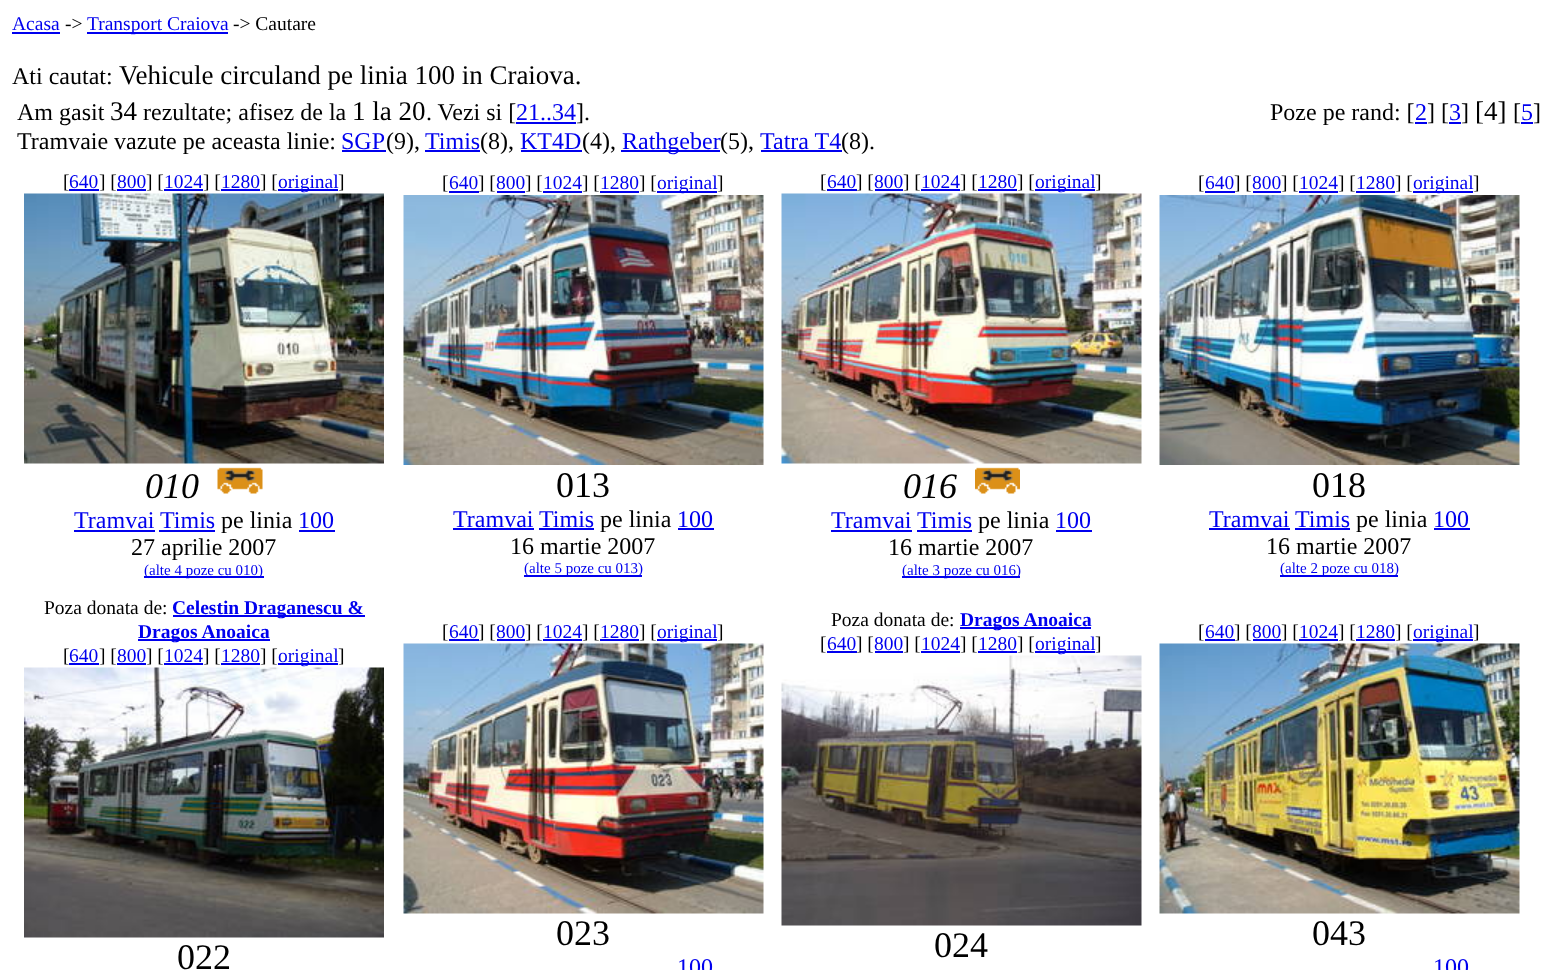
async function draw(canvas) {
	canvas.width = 1556;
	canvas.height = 970;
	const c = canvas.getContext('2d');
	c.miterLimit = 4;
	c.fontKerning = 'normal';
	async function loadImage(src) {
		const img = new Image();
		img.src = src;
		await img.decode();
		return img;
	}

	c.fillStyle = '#fff';
	c.fillRect(0, 0, 1556, 970);
	c.font = '19.5px Liberation Serif';
	c.fillStyle = '#00e';
	c.fillText('Acasa', 12, 30);
	c.fillRect(12, 32, 48, 2);
	c.fillStyle = '#000';
	c.fillText('->', 65, 30);
	c.fillStyle = '#00e';
	c.fillRect(87, 32, 141, 2);
	c.fillText('Transport Craiova', 87, 30);
	c.fillStyle = '#000';
	c.fillText('-> Cautare', 233, 30);
	c.font = '24px Liberation Serif';
	c.fillText('Ati cautat:', 12, 84);
	c.font = '27px Liberation Serif';
	c.fillText('Vehicule circuland pe linia 100 in Craiova.', 119, 84);
	c.font = '24px Liberation Serif';
	c.fillText('Am gasit', 17, 120);
	c.font = '27px Liberation Serif';
	c.fillText('34', 110, 120);
	c.font = '24px Liberation Serif';
	c.fillText('rezultate; afisez de la', 143, 120);
	c.font = '27px Liberation Serif';
	c.fillText('1 la 20', 352, 120);
	c.font = '24px Liberation Serif';
	c.fillText('. Vezi si [', 426, 120);
	c.fillStyle = '#00e';
	c.fillText('21..34', 516, 120);
	c.fillRect(516, 122, 60, 2);
	c.fillStyle = '#000';
	c.fillText('].', 576, 120);
	c.fillText('Tramvaie vazute pe aceasta linie:', 17, 149);
	c.fillStyle = '#00e';
	c.fillText('SGP', 341, 149);
	c.fillRect(342, 150, 44, 2);
	c.fillStyle = '#000';
	c.fillText('(9),', 386, 149);
	c.fillStyle = '#00e';
	c.fillText('Timis', 425, 149);
	c.fillRect(425, 150, 55, 2);
	c.fillStyle = '#000';
	c.fillText('(8),', 480, 149);
	c.fillStyle = '#00e';
	c.fillText('KT4D', 520, 149);
	c.fillRect(521, 150, 61, 2);
	c.fillStyle = '#000';
	c.fillText('(4),', 582, 149);
	c.fillStyle = '#00e';
	c.fillRect(621, 150, 99, 2);
	c.fillText('Rathgeber', 622, 149);
	c.fillStyle = '#000';
	c.fillText('(5),', 720, 149);
	c.fillStyle = '#00e';
	c.fillText('Tatra T4', 760, 149);
	c.fillRect(761, 150, 81, 2);
	c.fillStyle = '#000';
	c.fillText('(8).', 841, 149);
	c.fillText('Poze pe rand: [', 1270, 120);
	c.fillStyle = '#00e';
	c.fillText('2', 1415, 120);
	c.fillRect(1415, 122, 12, 2);
	c.fillStyle = '#000';
	c.fillText('] [', 1427, 120);
	c.fillStyle = '#00e';
	c.fillText('3', 1449, 120);
	c.fillRect(1449, 122, 12, 2);
	c.fillStyle = '#000';
	c.fillText(']', 1461, 120);
	c.font = '27px Liberation Serif';
	c.fillText('[4]', 1475, 120);
	c.font = '24px Liberation Serif';
	c.fillText('[', 1513, 120);
	c.fillStyle = '#00e';
	c.fillText('5', 1521, 120);
	c.fillRect(1521, 122, 12, 2);
	c.fillStyle = '#000';
	c.fillText(']', 1533, 120);
	c.font = '19.5px Liberation Serif';
	c.fillText('[', 63, 188);
	c.fillStyle = '#00e';
	c.fillRect(69, 189, 30, 2);
	c.fillText('640', 69, 188);
	c.fillStyle = '#000';
	c.fillText('] [', 99, 188);
	c.fillStyle = '#00e';
	c.fillText('800', 117, 188);
	c.fillStyle = '#000';
	c.fillText('] [', 146, 188);
	c.fillStyle = '#00e';
	c.fillRect(117, 189, 29, 2);
	c.fillRect(164, 189, 39, 2);
	c.fillText('1024', 164, 188);
	c.fillStyle = '#000';
	c.fillText('] [', 203, 188);
	c.fillStyle = '#00e';
	c.fillText('1280', 221, 188);
	c.fillStyle = '#000';
	c.fillText('] [', 260, 188);
	c.fillStyle = '#00e';
	c.fillRect(221, 189, 39, 2);
	c.fillRect(278, 189, 60, 2);
	c.fillText('original', 278, 188);
	c.fillStyle = '#000';
	c.fillText(']', 338, 188);
	c.drawImage(await loadImage('img1.png'), 24, 193, 360, 271);
	c.font = 'italic 36px Liberation Serif';
	c.fillText('010', 145, 498);
	c.drawImage(await loadImage('img2.png'), 217, 467, 46, 27);
	c.font = '24px Liberation Serif';
	c.fillStyle = '#00e';
	c.fillText('Tramvai', 74, 528);
	c.fillRect(74, 530, 81, 2);
	c.fillText('Timis', 160, 528);
	c.fillRect(159, 530, 56, 2);
	c.fillStyle = '#000';
	c.fillText('pe linia', 221, 528);
	c.fillStyle = '#00e';
	c.fillText('100', 298, 528);
	c.fillRect(299, 530, 36, 2);
	c.fillStyle = '#000';
	c.fillText('27 aprilie 2007', 131, 555);
	c.fillStyle = '#00e';
	c.fillRect(144, 576, 120, 2);
	c.font = '15px Liberation Serif';
	c.fillText('(alte 4 poze cu 010)', 144, 575);
	c.font = '19.5px Liberation Serif';
	c.fillStyle = '#000';
	c.fillText('[', 442, 189);
	c.fillStyle = '#00e';
	c.fillRect(449, 191, 30, 2);
	c.fillText('640', 449, 189);
	c.fillStyle = '#000';
	c.fillText('] [', 478, 189);
	c.fillStyle = '#00e';
	c.fillText('800', 496, 189);
	c.fillStyle = '#000';
	c.fillText('] [', 525, 189);
	c.fillStyle = '#00e';
	c.fillRect(497, 191, 28, 2);
	c.fillRect(543, 191, 39, 2);
	c.fillText('1024', 543, 189);
	c.fillStyle = '#000';
	c.fillText('] [', 582, 189);
	c.fillStyle = '#00e';
	c.fillRect(600, 191, 39, 2);
	c.fillText('1280', 600, 189);
	c.fillStyle = '#000';
	c.fillText('] [', 639, 189);
	c.fillStyle = '#00e';
	c.fillRect(657, 191, 60, 2);
	c.fillText('original', 657, 189);
	c.fillStyle = '#000';
	c.fillText(']', 717, 189);
	c.drawImage(await loadImage('img3.png'), 403, 195, 361, 270);
	c.font = '36px Liberation Serif';
	c.fillText('013', 556, 497);
	c.font = '24px Liberation Serif';
	c.fillStyle = '#00e';
	c.fillText('Tramvai', 453, 527);
	c.fillRect(453, 528, 81, 2);
	c.fillText('Timis', 539, 527);
	c.fillRect(539, 528, 55, 2);
	c.fillStyle = '#000';
	c.fillText('pe linia', 600, 527);
	c.fillStyle = '#00e';
	c.fillText('100', 677, 527);
	c.fillRect(678, 528, 36, 2);
	c.fillStyle = '#000';
	c.fillText('16 martie 2007', 510, 554);
	c.fillStyle = '#00e';
	c.fillRect(524, 575, 118, 2);
	c.font = '15px Liberation Serif';
	c.fillText('(alte 5 poze cu 013)', 524, 573);
	c.font = '19.5px Liberation Serif';
	c.fillStyle = '#000';
	c.fillText('[', 820, 188);
	c.fillStyle = '#00e';
	c.fillRect(827, 189, 30, 2);
	c.fillText('640', 827, 188);
	c.fillStyle = '#000';
	c.fillText('] [', 856, 188);
	c.fillStyle = '#00e';
	c.fillText('800', 874, 188);
	c.fillStyle = '#000';
	c.fillText('] [', 903, 188);
	c.fillStyle = '#00e';
	c.fillRect(875, 189, 28, 2);
	c.fillRect(921, 189, 39, 2);
	c.fillText('1024', 921, 188);
	c.fillStyle = '#000';
	c.fillText('] [', 960, 188);
	c.fillStyle = '#00e';
	c.fillRect(978, 189, 39, 2);
	c.fillText('1280', 978, 188);
	c.fillStyle = '#000';
	c.fillText('] [', 1017, 188);
	c.fillStyle = '#00e';
	c.fillRect(1035, 189, 60, 2);
	c.fillText('original', 1035, 188);
	c.fillStyle = '#000';
	c.fillText(']', 1095, 188);
	c.drawImage(await loadImage('img4.png'), 781, 193, 361, 271);
	c.font = 'italic 36px Liberation Serif';
	c.fillText('016', 903, 498);
	c.drawImage(await loadImage('img5.png'), 975, 467, 45, 27);
	c.font = '24px Liberation Serif';
	c.fillStyle = '#00e';
	c.fillText('Tramvai', 831, 528);
	c.fillRect(831, 530, 81, 2);
	c.fillText('Timis', 917, 528);
	c.fillRect(917, 530, 55, 2);
	c.fillStyle = '#000';
	c.fillText('pe linia', 978, 528);
	c.fillStyle = '#00e';
	c.fillText('100', 1055, 528);
	c.fillRect(1056, 530, 36, 2);
	c.fillStyle = '#000';
	c.fillText('16 martie 2007', 888, 555);
	c.fillStyle = '#00e';
	c.fillRect(902, 576, 118, 2);
	c.font = '15px Liberation Serif';
	c.fillText('(alte 3 poze cu 016)', 902, 575);
	c.font = '19.5px Liberation Serif';
	c.fillStyle = '#000';
	c.fillText('[', 1198, 189);
	c.fillStyle = '#00e';
	c.fillRect(1205, 191, 30, 2);
	c.fillText('640', 1205, 189);
	c.fillStyle = '#000';
	c.fillText('] [', 1234, 189);
	c.fillStyle = '#00e';
	c.fillText('800', 1252, 189);
	c.fillStyle = '#000';
	c.fillText('] [', 1281, 189);
	c.fillStyle = '#00e';
	c.fillRect(1253, 191, 28, 2);
	c.fillRect(1299, 191, 39, 2);
	c.fillText('1024', 1299, 189);
	c.fillStyle = '#000';
	c.fillText('] [', 1338, 189);
	c.fillStyle = '#00e';
	c.fillRect(1356, 191, 39, 2);
	c.fillText('1280', 1356, 189);
	c.fillStyle = '#000';
	c.fillText('] [', 1395, 189);
	c.fillStyle = '#00e';
	c.fillRect(1413, 191, 60, 2);
	c.fillText('original', 1413, 189);
	c.fillStyle = '#000';
	c.fillText(']', 1473, 189);
	c.drawImage(await loadImage('img6.png'), 1159, 195, 361, 270);
	c.font = '36px Liberation Serif';
	c.fillText('018', 1312, 497);
	c.font = '24px Liberation Serif';
	c.fillStyle = '#00e';
	c.fillText('Tramvai', 1209, 527);
	c.fillRect(1209, 528, 81, 2);
	c.fillText('Timis', 1295, 527);
	c.fillRect(1295, 528, 55, 2);
	c.fillStyle = '#000';
	c.fillText('pe linia', 1356, 527);
	c.fillStyle = '#00e';
	c.fillText('100', 1433, 527);
	c.fillRect(1434, 528, 36, 2);
	c.fillStyle = '#000';
	c.fillText('16 martie 2007', 1266, 554);
	c.fillStyle = '#00e';
	c.fillRect(1280, 575, 118, 2);
	c.font = '15px Liberation Serif';
	c.fillText('(alte 2 poze cu 018)', 1280, 573);
	c.font = '19.5px Liberation Serif';
	c.fillStyle = '#000';
	c.fillText('Poza donata de:', 44, 614);
	c.fillStyle = '#00e';
	c.fillRect(173, 615, 192, 2);
	c.font = 'bold 19.5px Liberation Serif';
	c.fillText('Celestin Draganescu &', 172, 614);
	c.fillRect(138, 639, 132, 2);
	c.fillText('Dragos Anoaica', 138, 638);
	c.font = '19.5px Liberation Serif';
	c.fillStyle = '#000';
	c.fillText('[', 63, 662);
	c.fillStyle = '#00e';
	c.fillRect(69, 663, 30, 2);
	c.fillText('640', 69, 662);
	c.fillStyle = '#000';
	c.fillText('] [', 99, 662);
	c.fillStyle = '#00e';
	c.fillText('800', 117, 662);
	c.fillStyle = '#000';
	c.fillText('] [', 146, 662);
	c.fillStyle = '#00e';
	c.fillRect(117, 663, 29, 2);
	c.fillRect(164, 663, 39, 2);
	c.fillText('1024', 164, 662);
	c.fillStyle = '#000';
	c.fillText('] [', 203, 662);
	c.fillStyle = '#00e';
	c.fillText('1280', 221, 662);
	c.fillStyle = '#000';
	c.fillText('] [', 260, 662);
	c.fillStyle = '#00e';
	c.fillRect(221, 663, 39, 2);
	c.fillRect(278, 663, 60, 2);
	c.fillText('original', 278, 662);
	c.fillStyle = '#000';
	c.fillText(']', 338, 662);
	c.drawImage(await loadImage('img7.png'), 24, 667, 360, 271);
	c.font = '36px Liberation Serif';
	c.fillText('022', 177, 969);
	c.font = '19.5px Liberation Serif';
	c.fillText('[', 442, 638);
	c.fillStyle = '#00e';
	c.fillRect(449, 639, 30, 2);
	c.fillText('640', 449, 638);
	c.fillStyle = '#000';
	c.fillText('] [', 478, 638);
	c.fillStyle = '#00e';
	c.fillText('800', 496, 638);
	c.fillStyle = '#000';
	c.fillText('] [', 525, 638);
	c.fillStyle = '#00e';
	c.fillRect(497, 639, 28, 2);
	c.fillRect(543, 639, 39, 2);
	c.fillText('1024', 543, 638);
	c.fillStyle = '#000';
	c.fillText('] [', 582, 638);
	c.fillStyle = '#00e';
	c.fillRect(600, 639, 39, 2);
	c.fillText('1280', 600, 638);
	c.fillStyle = '#000';
	c.fillText('] [', 639, 638);
	c.fillStyle = '#00e';
	c.fillRect(657, 639, 60, 2);
	c.fillText('original', 657, 638);
	c.fillStyle = '#000';
	c.fillText(']', 717, 638);
	c.drawImage(await loadImage('img8.png'), 403, 643, 361, 271);
	c.font = '36px Liberation Serif';
	c.fillText('023', 556, 945);
	c.font = '24px Liberation Serif';
	c.fillStyle = '#00e';
	c.fillText('100', 677, 975);
	c.font = '19.5px Liberation Serif';
	c.fillStyle = '#000';
	c.fillText('Poza donata de:', 831, 626);
	c.fillStyle = '#00e';
	c.fillRect(960, 627, 131, 2);
	c.font = 'bold 19.5px Liberation Serif';
	c.fillText('Dragos Anoaica', 960, 626);
	c.font = '19.5px Liberation Serif';
	c.fillStyle = '#000';
	c.fillText('[', 820, 650);
	c.fillStyle = '#00e';
	c.fillRect(827, 651, 30, 2);
	c.fillText('640', 827, 650);
	c.fillStyle = '#000';
	c.fillText('] [', 856, 650);
	c.fillStyle = '#00e';
	c.fillText('800', 874, 650);
	c.fillStyle = '#000';
	c.fillText('] [', 903, 650);
	c.fillStyle = '#00e';
	c.fillRect(875, 651, 28, 2);
	c.fillRect(921, 651, 39, 2);
	c.fillText('1024', 921, 650);
	c.fillStyle = '#000';
	c.fillText('] [', 960, 650);
	c.fillStyle = '#00e';
	c.fillRect(978, 651, 39, 2);
	c.fillText('1280', 978, 650);
	c.fillStyle = '#000';
	c.fillText('] [', 1017, 650);
	c.fillStyle = '#00e';
	c.fillRect(1035, 651, 60, 2);
	c.fillText('original', 1035, 650);
	c.fillStyle = '#000';
	c.fillText(']', 1095, 650);
	c.drawImage(await loadImage('img9.png'), 781, 655, 361, 271);
	c.font = '36px Liberation Serif';
	c.fillText('024', 934, 957);
	c.font = '19.5px Liberation Serif';
	c.fillText('[', 1198, 638);
	c.fillStyle = '#00e';
	c.fillRect(1205, 639, 30, 2);
	c.fillText('640', 1205, 638);
	c.fillStyle = '#000';
	c.fillText('] [', 1234, 638);
	c.fillStyle = '#00e';
	c.fillText('800', 1252, 638);
	c.fillStyle = '#000';
	c.fillText('] [', 1281, 638);
	c.fillStyle = '#00e';
	c.fillRect(1253, 639, 28, 2);
	c.fillRect(1299, 639, 39, 2);
	c.fillText('1024', 1299, 638);
	c.fillStyle = '#000';
	c.fillText('] [', 1338, 638);
	c.fillStyle = '#00e';
	c.fillRect(1356, 639, 39, 2);
	c.fillText('1280', 1356, 638);
	c.fillStyle = '#000';
	c.fillText('] [', 1395, 638);
	c.fillStyle = '#00e';
	c.fillRect(1413, 639, 60, 2);
	c.fillText('original', 1413, 638);
	c.fillStyle = '#000';
	c.fillText(']', 1473, 638);
	c.drawImage(await loadImage('img10.png'), 1159, 643, 361, 271);
	c.font = '36px Liberation Serif';
	c.fillText('043', 1312, 945);
	c.font = '24px Liberation Serif';
	c.fillStyle = '#00e';
	c.fillText('100', 1433, 975);
}

draw(document.querySelector('canvas'));
